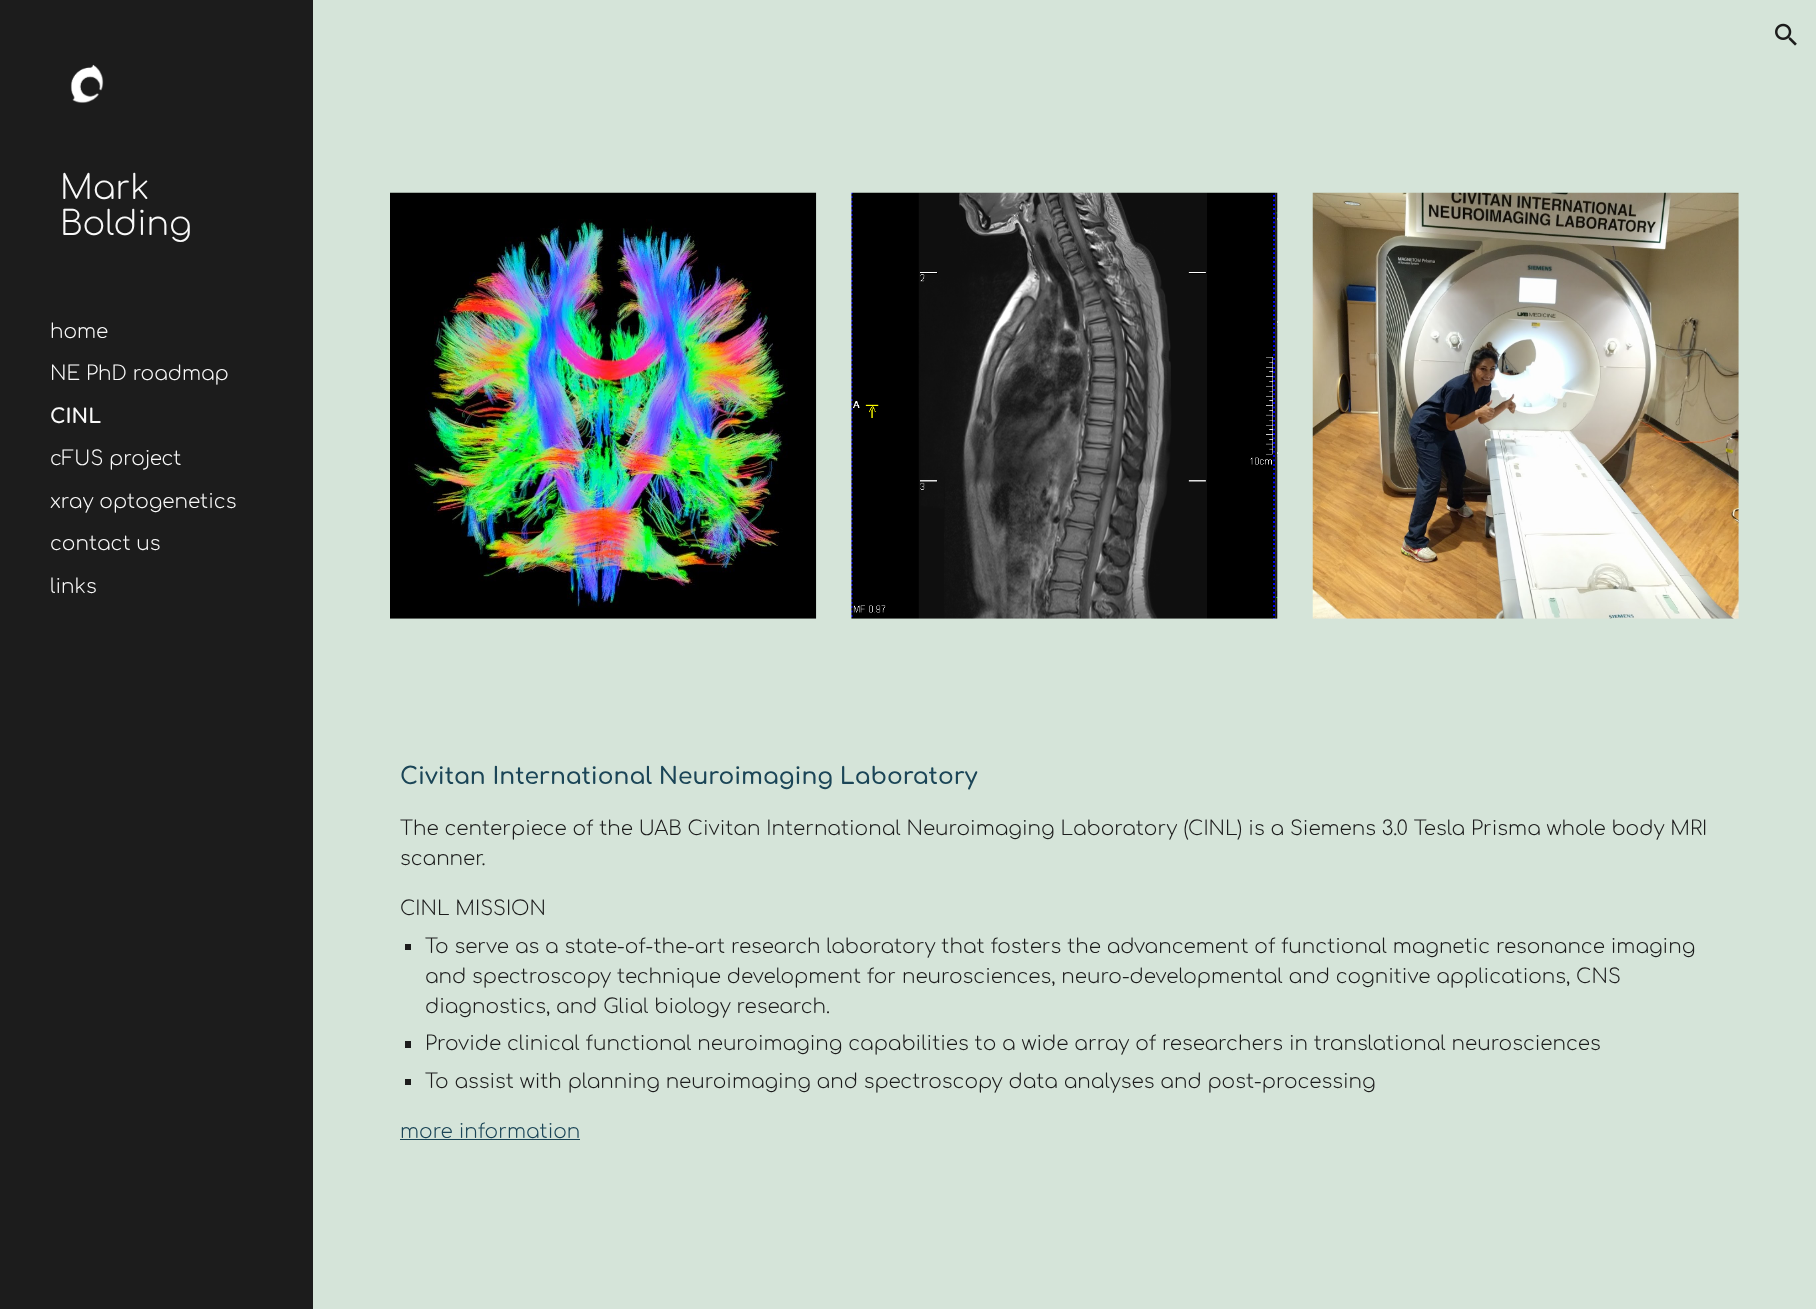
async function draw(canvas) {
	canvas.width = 1816;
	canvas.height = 1309;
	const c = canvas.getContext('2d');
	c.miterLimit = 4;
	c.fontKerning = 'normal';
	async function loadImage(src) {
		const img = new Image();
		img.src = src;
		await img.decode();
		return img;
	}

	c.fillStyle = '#d5e4d9';
	c.fillRect(0, 0, 1816, 1309);
	c.drawImage(await loadImage('img1.png'), 1775, 23, 22, 23);
	c.fillStyle = '#1c1c1c';
	c.fillRect(0, 0, 313, 1309);
	c.drawImage(await loadImage('img2.png'), 70, 64, 34, 39);
	c.font = '300 33.5px Comfortaa';
	c.fillStyle = '#f9f9f9';
	c.fillText('Mark', 60, 199);
	c.fillText('Bolding', 60, 235);
	c.font = '300 20px Comfortaa';
	c.fillText('home', 50, 338);
	c.fillText('NE PhD roadmap', 50, 380);
	c.font = 'bold 20px Comfortaa';
	c.fillText('CINL', 50, 423);
	c.font = '300 20px Comfortaa';
	for (const [text, x, y] of [
		['cFUS project', 50, 465],
		['xray optogenetics', 50, 508],
		['contact us', 50, 550],
		['links', 50, 593],
	]) {
		c.fillText(text, x, y);
	}
	c.drawImage(await loadImage('img3.png'), 390, 192, 427, 427);
	c.drawImage(await loadImage('img4.png'), 851, 192, 427, 427);
	c.drawImage(await loadImage('img5.png'), 1312, 192, 427, 427);
	c.font = '600 23.3px Comfortaa';
	c.fillStyle = '#1b4557';
	c.fillText('Civitan International Neuroimaging Laboratory', 400, 784);
	c.font = '300 20px Comfortaa';
	c.fillStyle = '#1c1c1c';
	for (const [text, x, y] of [
		['The centerpiece of the UAB Civitan International Neuroimaging Laboratory (CINL) is a Siemens 3.0 Tesla Prisma whole body MRI', 400, 835],
		['scanner.', 400, 865],
		['CINL MISSION', 400, 915],
	]) {
		c.fillText(text, x, y);
	}
	c.fillRect(405, 944, 6, 6);
	for (const [text, x, y] of [
		['To serve as a state-of-the-art research laboratory that fosters the advancement of functional magnetic resonance imaging', 425, 953],
		['and spectroscopy technique development for neurosciences, neuro-developmental and cognitive applications, CNS', 425, 983],
		['diagnostics, and Glial biology research.', 425, 1013],
	]) {
		c.fillText(text, x, y);
	}
	c.fillRect(405, 1041, 6, 7);
	c.fillText('Provide clinical functional neuroimaging capabilities to a wide array of researchers in translational neurosciences', 425, 1050);
	c.fillRect(405, 1079, 6, 6);
	c.fillText('To assist with planning neuroimaging and spectroscopy data analyses and post-processing', 425, 1088);
	c.fillStyle = '#1b4557';
	c.fillText('more information', 400, 1138);
	c.fillRect(400, 1139, 180, 1);
}

draw(document.querySelector('canvas'));
